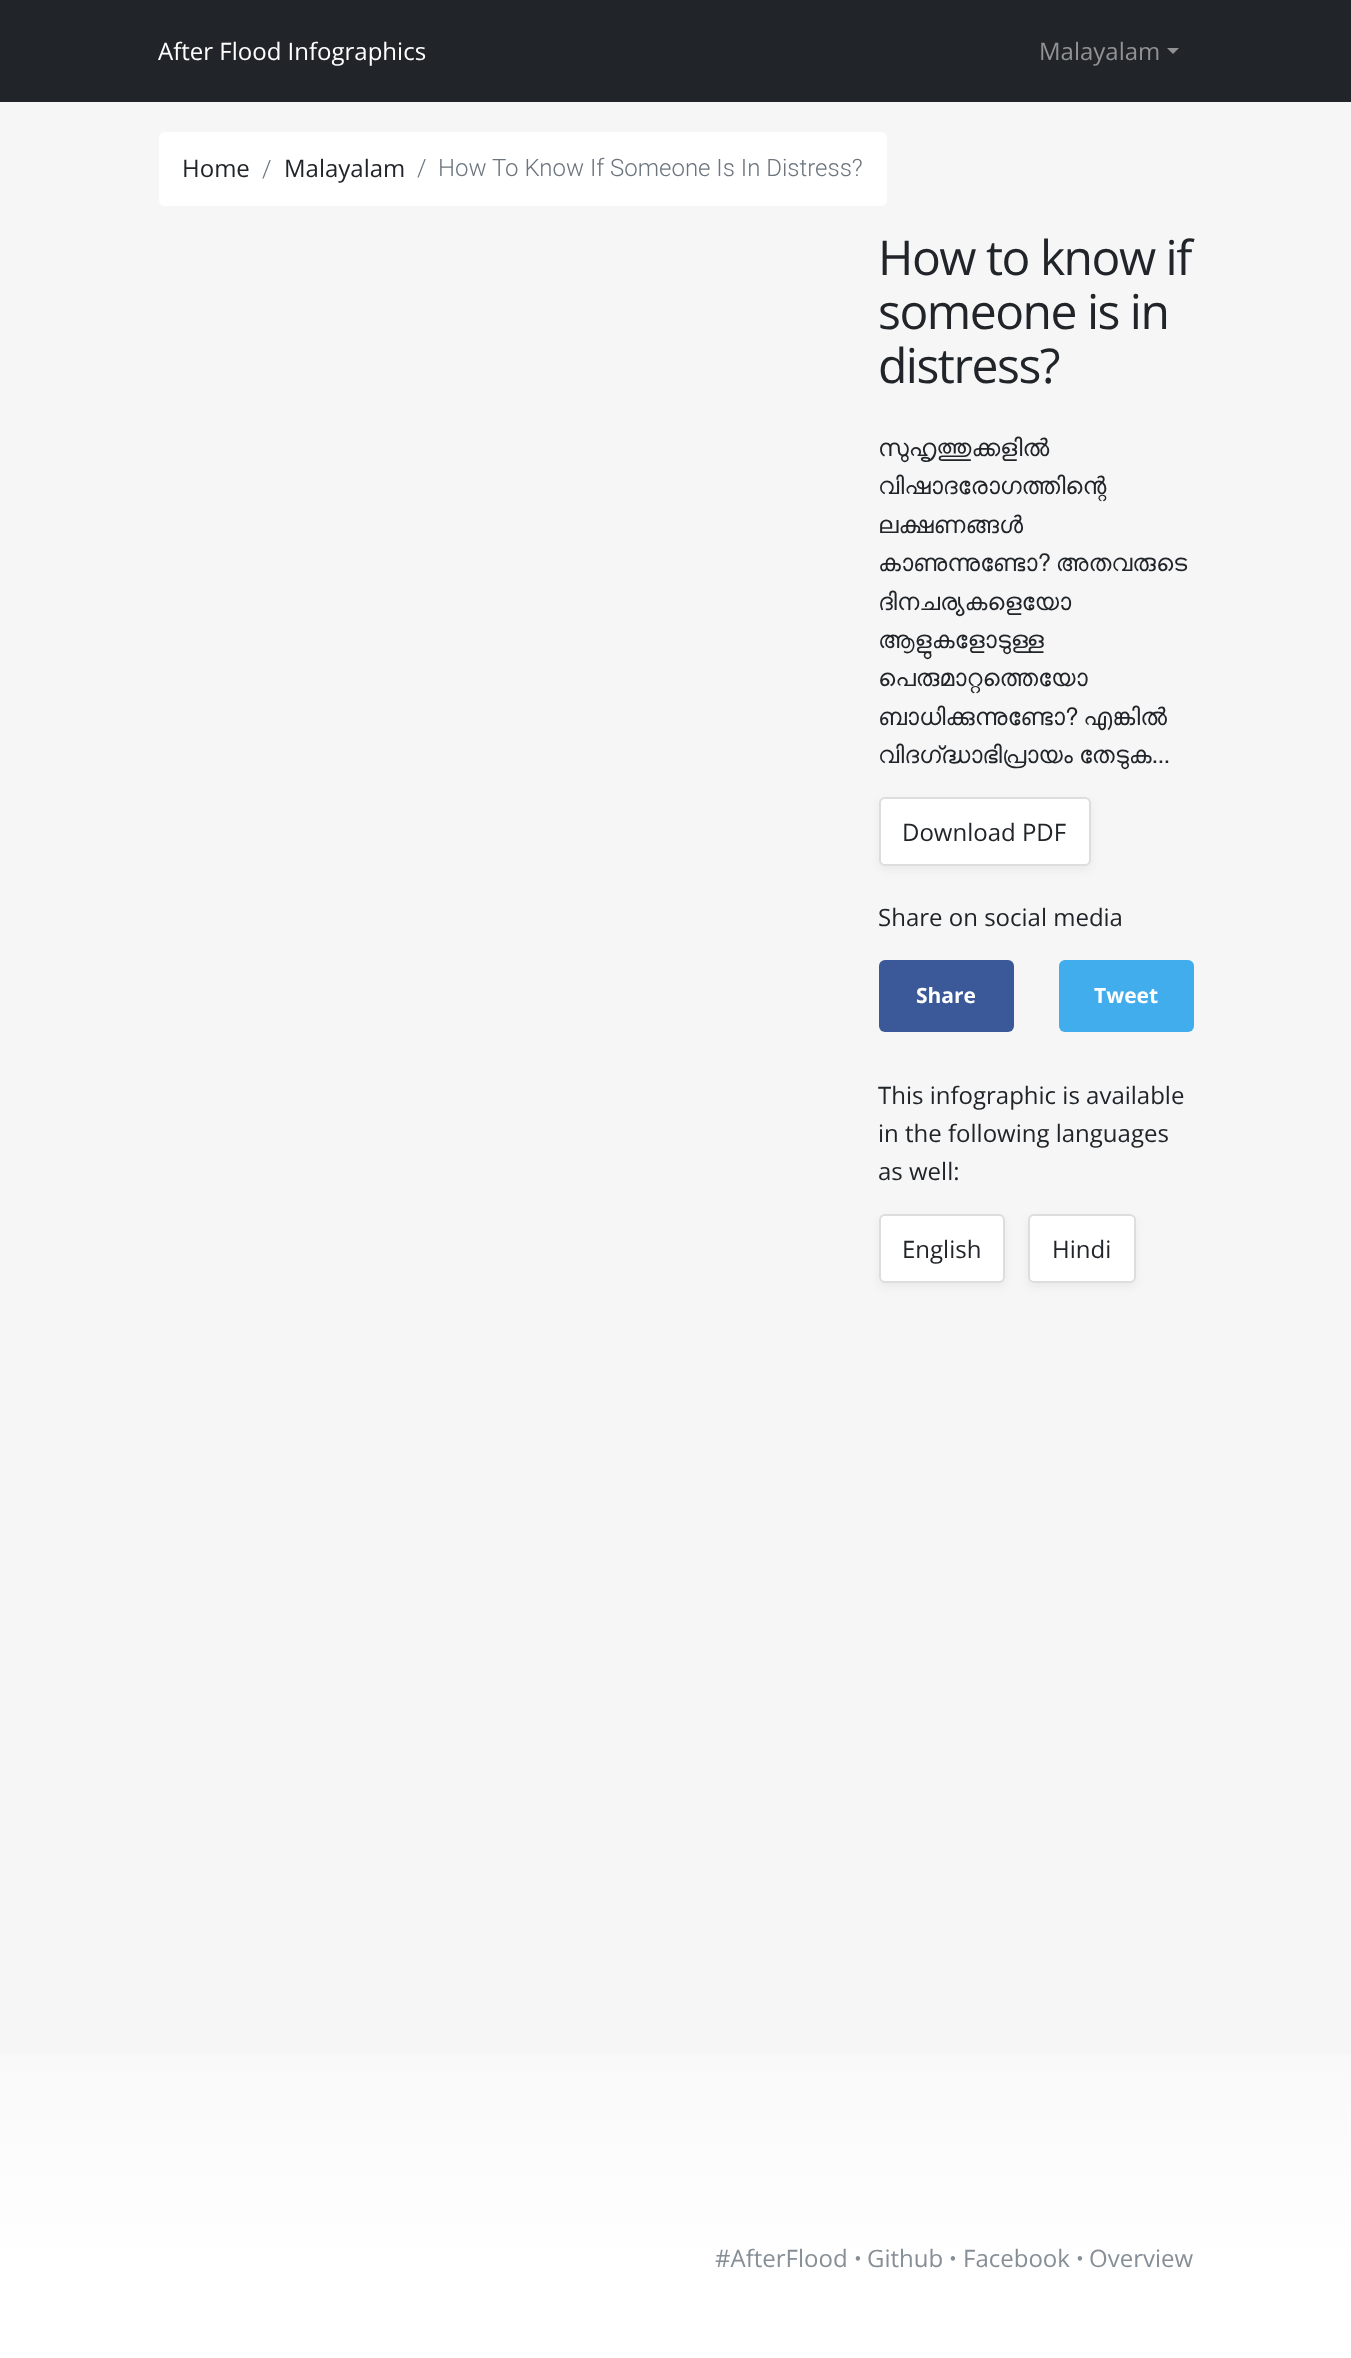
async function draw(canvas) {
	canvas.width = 1351;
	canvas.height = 2358;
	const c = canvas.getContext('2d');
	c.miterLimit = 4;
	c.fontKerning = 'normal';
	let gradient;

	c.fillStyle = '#f6f6f6';
	c.fillRect(0, 0, 1351, 2358);
	c.fillStyle = '#212529';
	c.fillRect(0, 0, 1351, 102);
	c.font = '24px Open Sans';
	c.fillStyle = '#fff';
	c.fillText('After Flood Infographics', 158, 60);
	c.fillStyle = '#909294';
	c.fillText('Malayalam', 1039, 60);
	c.beginPath();
	c.moveTo(1167, 48);
	c.lineTo(1179, 48);
	c.lineTo(1173, 54);
	c.closePath();
	c.fill();
	c.fillStyle = '#fff';
	c.beginPath();
	c.roundRect(159, 132, 728, 74, 6);
	c.fill();
	c.fillStyle = '#212529';
	c.fillText('Home', 182, 177);
	c.font = '300 24px Roboto';
	c.fillStyle = '#6c757d';
	c.fillText('/', 262, 177);
	c.font = '24px Open Sans';
	c.fillStyle = '#212529';
	c.fillText('Malayalam', 284, 177);
	c.font = '300 24px Roboto';
	c.fillStyle = '#6c757d';
	c.fillText('/', 417, 176);
	c.fillText('How To Know If Someone Is In Distress?', 438, 176);
	c.letterSpacing = '-1.5px';
	c.font = '48px Open Sans';
	c.fillStyle = '#212529';
	for (const [text, x, y] of [
		['How to know if', 878, 275],
		['someone is in', 878, 329],
		['distress?', 878, 383],
	]) {
		c.fillText(text, x, y);
	}
	c.letterSpacing = '0px';
	c.font = '24px FreeSans';
	for (const [text, x, y] of [
		['സുഹൃത്തുക്കളിൽ', 878, 456],
		['വിഷാദരോഗത്തിന്റെ', 878, 494],
		['ലക്ഷണങ്ങൾ', 878, 533],
	]) {
		c.fillText(text, x, y);
	}
	c.wordSpacing = '-1px';
	c.fillText('കാണുന്നുണ്ടോ? അതവരുടെ', 878, 571);
	c.wordSpacing = '0px';
	for (const [text, x, y] of [
		['ദിനചര്യകളെയോ', 878, 610],
		['ആളുകളോടുള്ള', 878, 648],
		['പെരുമാറ്റത്തെയോ', 878, 686],
	]) {
		c.fillText(text, x, y);
	}
	c.wordSpacing = '-1px';
	c.fillText('ബാധിക്കുന്നുണ്ടോ? എങ്കിൽ', 878, 725);
	c.wordSpacing = '0px';
	c.fillText('വിദഗ്‌ദ്ധാഭിപ്രായം തേടുക...', 878, 763);
	c.fillStyle = '#0000000d';
	c.filter = 'blur(5px)';
	c.beginPath();
	c.roundRect(879, 801, 212, 69, 6);
	c.fill();
	c.filter = 'none';
	c.fillStyle = '#fff';
	c.beginPath();
	c.roundRect(880, 798, 210, 67, 5);
	c.fill();
	c.strokeStyle = '#ddd';
	c.lineWidth = 2;
	c.stroke();
	c.font = '24px Open Sans';
	c.fillStyle = '#212529';
	c.fillText('Download PDF', 902, 841);
	c.fillText('Share on social media', 878, 926);
	c.fillStyle = '#3b5998';
	c.beginPath();
	c.roundRect(879, 960, 135, 72, 6);
	c.fill();
	c.font = 'bold 21px Open Sans';
	c.fillStyle = '#fff';
	c.fillText('Share', 916, 1003);
	c.fillStyle = '#41aded';
	c.beginPath();
	c.roundRect(1059, 960, 135, 72, 6);
	c.fill();
	c.fillStyle = '#fff';
	c.fillText('Tweet', 1094, 1003);
	c.font = '24px Open Sans';
	c.fillStyle = '#212529';
	for (const [text, x, y] of [
		['This infographic is available', 878, 1104],
		['in the following languages', 878, 1142],
		['as well:', 878, 1180],
	]) {
		c.fillText(text, x, y);
	}
	c.fillStyle = '#0000000d';
	c.filter = 'blur(5px)';
	c.beginPath();
	c.roundRect(879, 1218, 126, 69, 6);
	c.fill();
	c.filter = 'none';
	c.fillStyle = '#fff';
	c.beginPath();
	c.roundRect(880, 1215, 124, 67, 5);
	c.fill();
	c.stroke();
	c.fillStyle = '#212529';
	c.fillText('English', 902, 1258);
	c.fillStyle = '#0000000d';
	c.filter = 'blur(5px)';
	c.beginPath();
	c.roundRect(1028, 1218, 108, 69, 6);
	c.fill();
	c.filter = 'none';
	c.fillStyle = '#fff';
	c.beginPath();
	c.roundRect(1029, 1215, 106, 67, 5);
	c.fill();
	c.stroke();
	c.fillStyle = '#212529';
	c.fillText('Hindi', 1052, 1258);
	gradient = c.createLinearGradient(676, 2004, 676, 2358);
	gradient.addColorStop(0, '#f7f7f7');
	gradient.addColorStop(0.75, '#fff');
	c.fillStyle = gradient;
	c.fillRect(0, 2054, 1351, 304);
	c.fillStyle = '#868e96';
	c.fillText('#AfterFlood', 715, 2267);
	c.font = '300 24px Roboto';
	c.fillText('•', 854, 2267);
	c.font = '24px Open Sans';
	c.fillText('Github', 867, 2267);
	c.font = '300 24px Roboto';
	c.fillText('•', 949, 2267);
	c.font = '24px Open Sans';
	c.fillText('Facebook', 963, 2267);
	c.font = '300 24px Roboto';
	c.fillText('•', 1076, 2267);
	c.font = '24px Open Sans';
	c.fillText('Overview', 1089, 2267);
}

draw(document.querySelector('canvas'));
